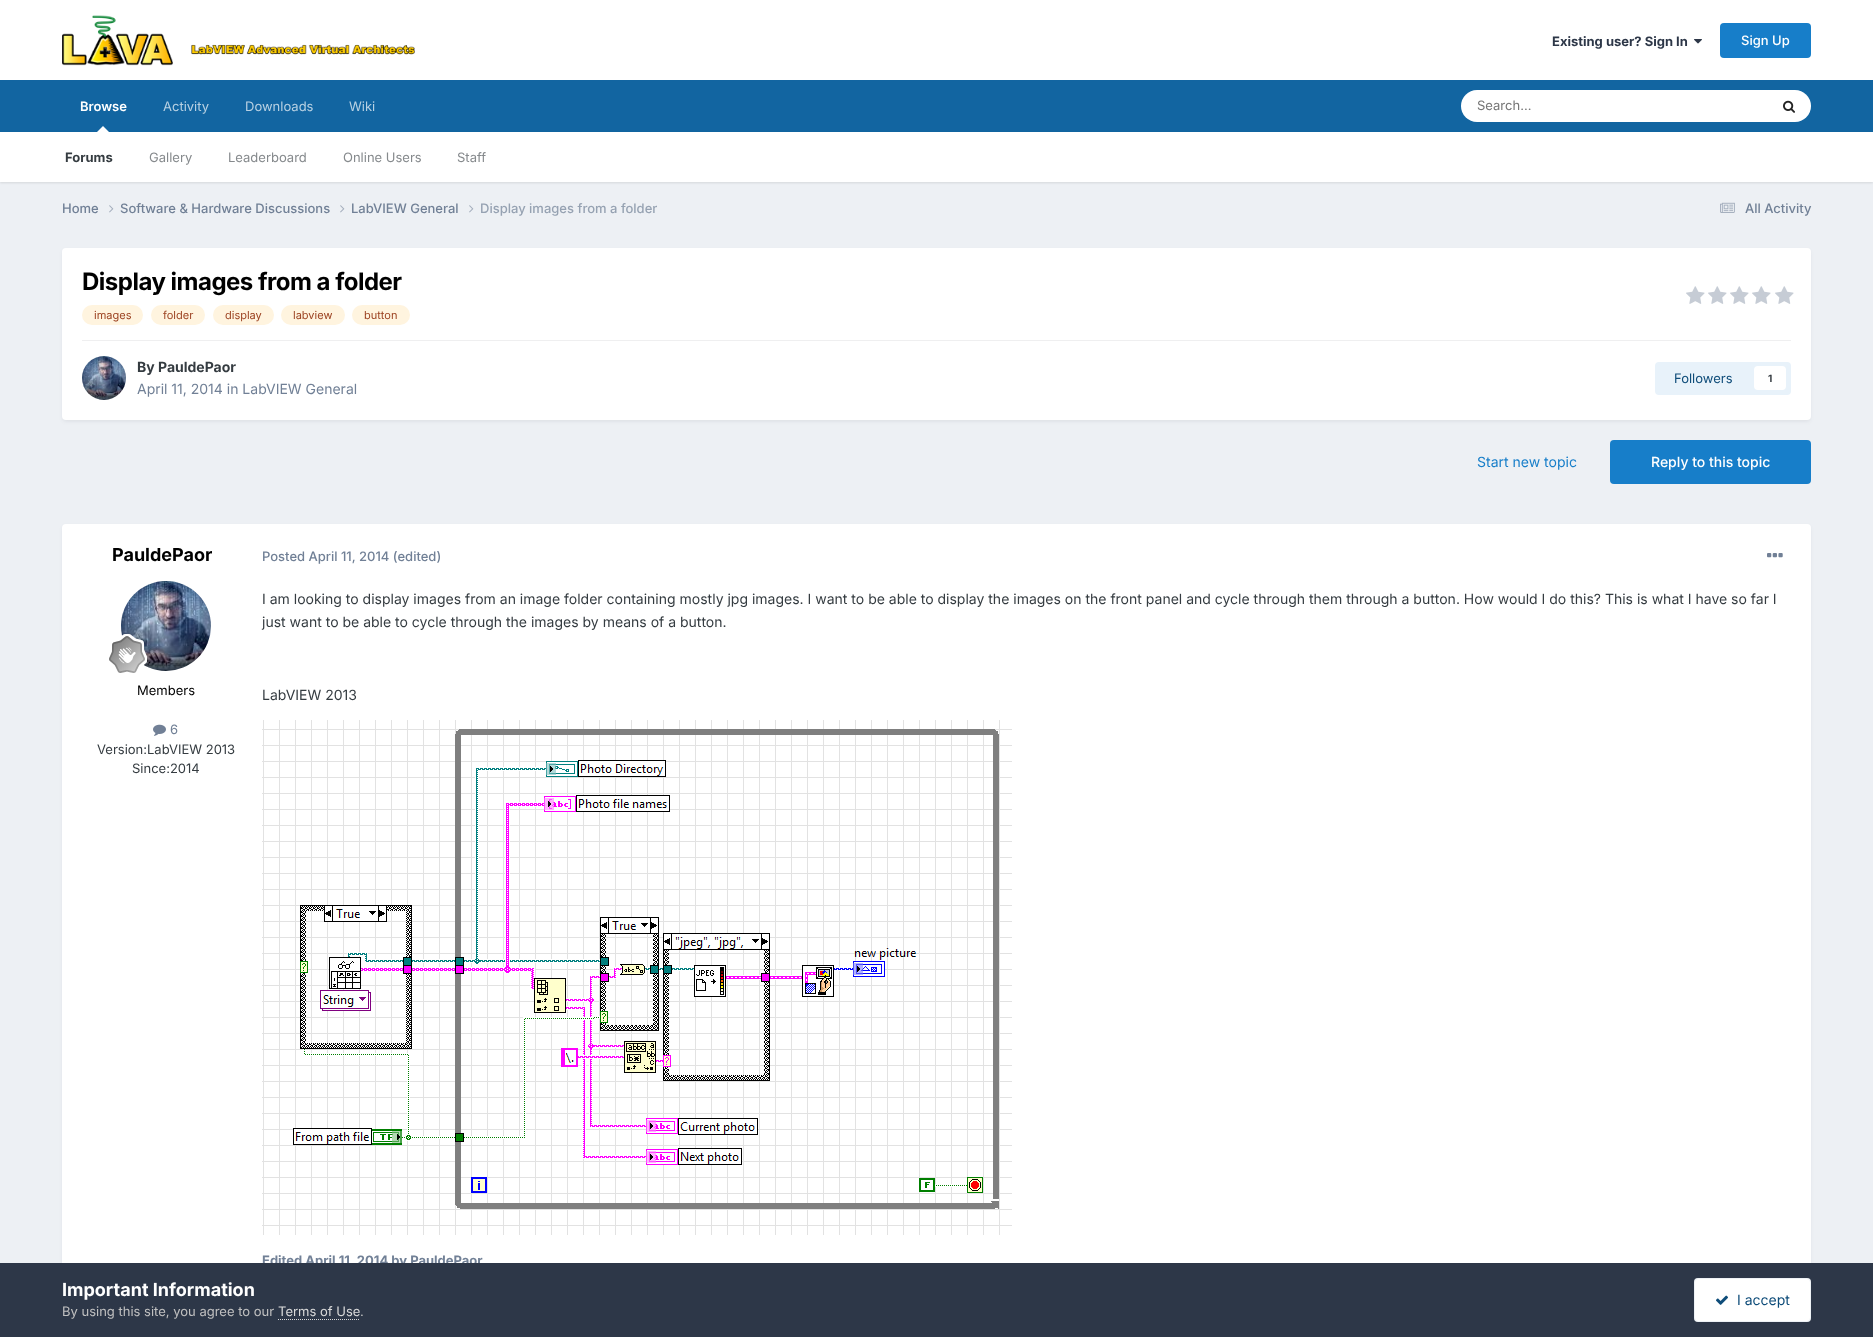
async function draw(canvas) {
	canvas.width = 1873;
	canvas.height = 1337;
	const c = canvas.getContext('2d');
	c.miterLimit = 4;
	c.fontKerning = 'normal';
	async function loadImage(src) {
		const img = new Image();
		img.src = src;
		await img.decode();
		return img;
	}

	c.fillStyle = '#edf0f4';
	c.fillRect(0, 0, 1873, 1337);
	c.fillStyle = '#fff';
	c.fillRect(0, 0, 1873, 80);
	c.drawImage(await loadImage('img1.png'), 62, 15, 353, 51);
	c.font = 'bold 13px Inter';
	c.fillStyle = '#2d3748';
	c.fillText('Existing user? Sign In', 1552, 46);
	c.drawImage(await loadImage('img2.png'), 1694, 39, 8, 5);
	c.fillStyle = '#177ec9';
	c.beginPath();
	c.roundRect(1720, 23, 91, 35, 4);
	c.fill();
	c.font = '500 13px Inter';
	c.fillStyle = '#fff';
	c.fillText('Sign Up', 1741, 45);
	c.fillStyle = '#1265a1';
	c.fillRect(0, 80, 1873, 52);
	c.font = '600 13px Inter';
	c.fillStyle = '#fff';
	c.fillText('Browse', 80, 111);
	c.fillStyle = '#0000001a';
	c.filter = 'blur(1px)';
	c.beginPath();
	c.rect(0, 133, 1873, 50);
	c.fill();
	c.filter = 'none';
	c.fillStyle = '#fff';
	c.beginPath();
	c.moveTo(109, 132);
	c.lineTo(97, 132);
	c.lineTo(103, 126);
	c.closePath();
	c.fill();
	c.fillRect(0, 132, 1873, 50);
	c.font = 'bold 13px Inter';
	c.fillStyle = '#353c41';
	c.fillText('Forums', 65, 162);
	c.font = '13px Inter';
	c.fillStyle = '#868a8d';
	for (const [text, x, y] of [
		['Gallery', 149, 162],
		['Leaderboard', 228, 162],
		['Online Users', 343, 162],
		['Staff', 457, 162],
	]) {
		c.fillText(text, x, y);
	}
	c.fillStyle = '#b8d1e3';
	for (const [text, x, y] of [
		['Activity', 163, 111],
		['Downloads', 245, 111],
		['Wiki', 349, 111],
	]) {
		c.fillText(text, x, y);
	}
	c.fillStyle = '#fff';
	c.beginPath();
	c.roundRect(1461, 90, 350, 32, 16);
	c.fill();
	c.fillStyle = '#757575';
	c.fillText('Search...', 1477, 110);
	c.drawImage(await loadImage('img3.png'), 1783, 100, 12, 13);
	c.font = '500 13px Inter';
	c.fillStyle = '#718096';
	c.fillText('Home', 62, 213);
	c.drawImage(await loadImage('img4.png'), 109, 205, 5, 8);
	c.fillText('Software & Hardware Discussions', 120, 213);
	c.drawImage(await loadImage('img4.png'), 340, 205, 5, 8);
	c.fillText('LabVIEW General', 351, 213);
	c.drawImage(await loadImage('img4.png'), 469, 205, 5, 8);
	c.fillStyle = '#96a2b2';
	c.fillText('Display images from a folder', 480, 213);
	c.drawImage(await loadImage('img5.png'), 1720, 202, 15, 11);
	c.fillStyle = '#718096';
	c.fillText('All Activity', 1745, 213);
	c.fillStyle = '#2d37481a';
	c.filter = 'blur(2px)';
	c.beginPath();
	c.roundRect(63, 251, 1747, 170, 3);
	c.fill();
	c.filter = 'none';
	c.fillStyle = '#fff';
	c.beginPath();
	c.roundRect(62, 248, 1749, 172, 4);
	c.fill();
	c.letterSpacing = '-0.5px';
	c.font = 'bold 24px Inter';
	c.fillStyle = '#000';
	c.fillText('Display images from a folder', 82, 290);
	c.fillStyle = '#fff4df';
	c.beginPath();
	c.roundRect(82, 305, 61, 20, 10);
	c.fill();
	c.letterSpacing = '0px';
	c.font = '11px Inter';
	c.fillStyle = '#9c4221';
	c.fillText('images', 94, 319);
	c.fillStyle = '#fff4df';
	c.beginPath();
	c.roundRect(151, 305, 54, 20, 10);
	c.fill();
	c.fillStyle = '#9c4221';
	c.fillText('folder', 163, 319);
	c.fillStyle = '#fff4df';
	c.beginPath();
	c.roundRect(213, 305, 61, 20, 10);
	c.fill();
	c.fillStyle = '#9c4221';
	c.fillText('display', 225, 319);
	c.fillStyle = '#fff4df';
	c.beginPath();
	c.roundRect(281, 305, 64, 20, 10);
	c.fill();
	c.fillStyle = '#9c4221';
	c.fillText('labview', 293, 319);
	c.fillStyle = '#fff4df';
	c.beginPath();
	c.roundRect(352, 305, 58, 20, 10);
	c.fill();
	c.fillStyle = '#9c4221';
	c.fillText('button', 364, 319);
	c.drawImage(await loadImage('img6.png'), 1686, 286, 19, 18);
	c.drawImage(await loadImage('img6.png'), 1708, 286, 19, 18);
	c.drawImage(await loadImage('img6.png'), 1730, 286, 19, 18);
	c.drawImage(await loadImage('img6.png'), 1752, 286, 19, 18);
	c.drawImage(await loadImage('img6.png'), 1775, 286, 19, 18);
	c.fillStyle = '#efeff0';
	c.fillRect(82, 340, 1709, 1);
	c.drawImage(await loadImage('img7.png'), 82, 356, 44, 44);
	c.font = 'bold 14px Inter';
	c.fillStyle = '#353c41';
	c.fillText('By PauldePaor', 137, 372);
	c.font = '14px Inter';
	c.fillStyle = '#718096';
	c.fillText('April 11, 2014 in LabVIEW General', 137, 394);
	c.fillStyle = '#e8f2fa';
	c.beginPath();
	c.roundRect(1655, 362, 136, 33, 4);
	c.fill();
	c.font = '13px Inter';
	c.fillStyle = '#0e4c79';
	c.fillText('Followers', 1674, 383);
	c.fillStyle = '#fff';
	c.beginPath();
	c.roundRect(1754, 366, 32, 24, 4);
	c.fill();
	c.font = 'bold 10px Inter';
	c.fillStyle = '#353c41';
	c.fillText('1', 1768, 382);
	c.font = '14px Inter';
	c.fillStyle = '#177ec9';
	c.fillText('Start new topic', 1477, 467);
	c.beginPath();
	c.roundRect(1610, 440, 201, 44, 4);
	c.fill();
	c.font = '500 14px Inter';
	c.fillStyle = '#fff';
	c.fillText('Reply to this topic', 1651, 467);
	c.fillStyle = '#2d37481a';
	c.filter = 'blur(2px)';
	c.beginPath();
	c.roundRect(63, 527, 1747, 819, 3);
	c.fill();
	c.filter = 'none';
	c.fillStyle = '#fff';
	c.beginPath();
	c.roundRect(62, 524, 1749, 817, 4);
	c.fill();
	c.font = 'bold 18px Inter';
	c.fillStyle = '#000';
	c.fillText('PauldePaor', 112, 561);
	c.drawImage(await loadImage('img8.png'), 121, 581, 90, 90);
	c.drawImage(await loadImage('img9.png'), 109, 634, 38, 39);
	c.font = '13px Inter';
	c.fillText('Members', 137, 695);
	c.drawImage(await loadImage('img10.png'), 153, 724, 13, 12);
	c.fillStyle = '#718096';
	c.fillText('6', 170, 734);
	c.fillStyle = '#353c41';
	c.fillText('Version:LabVIEW 2013', 97, 754);
	c.fillText('Since:2014', 132, 773);
	c.font = '500 13px Inter';
	c.fillStyle = '#718096';
	c.fillText('Posted April 11, 2014 (edited)', 262, 561);
	c.drawImage(await loadImage('img11.png'), 1767, 553, 16, 5);
	c.font = '14px Inter';
	c.fillStyle = '#353c41';
	for (const [text, x, y] of [
		['I am looking to display images from an image folder containing mostly jpg images. I want to be able to display the images on the front panel and cycle through them through a button. How would I do this? This is what I have so far I', 262, 604],
		['just want to be able to cycle through the images by means of a button.', 262, 627],
		['LabVIEW 2013', 262, 700],
	]) {
		c.fillText(text, x, y);
	}
	c.drawImage(await loadImage('img12.png'), 262, 720, 750, 515);
	c.font = 'bold 13px Inter';
	c.fillStyle = '#718096';
	c.fillText('Edited April 11, 2014 by PauldePaor', 262, 1265);
	c.fillStyle = '#2d3748';
	c.fillRect(0, 1263, 1873, 74);
	c.font = 'bold 18px Inter';
	c.fillStyle = '#fff';
	c.fillText('Important Information', 62, 1296);
	c.font = '13px Inter';
	c.fillStyle = '#c0c0c0';
	c.fillText('By using this site, you agree to our', 62, 1316);
	c.fillStyle = '#dadada';
	c.fillText('Terms of Use', 278, 1316);
	c.beginPath();
	c.moveTo(278, 1319.5);
	c.lineTo(360, 1319.5);
	c.strokeStyle = '#dadada';
	c.setLineDash([1, 1]);
	c.stroke();
	c.fillStyle = '#c0c0c0';
	c.fillText('.', 360, 1316);
	c.fillStyle = '#fff';
	c.beginPath();
	c.roundRect(1694, 1278, 117, 44, 4);
	c.fill();
	c.beginPath();
	c.roundRect(1694.5, 1278.5, 116, 43, 3.5);
	c.strokeStyle = '#0e4c7912';
	c.setLineDash([]);
	c.stroke();
	c.drawImage(await loadImage('img13.png'), 1716, 1295, 12, 10);
	c.font = '14px Inter';
	c.fillStyle = '#0e4c79';
	c.fillText('I accept', 1737, 1305);
}

draw(document.querySelector('canvas'));
